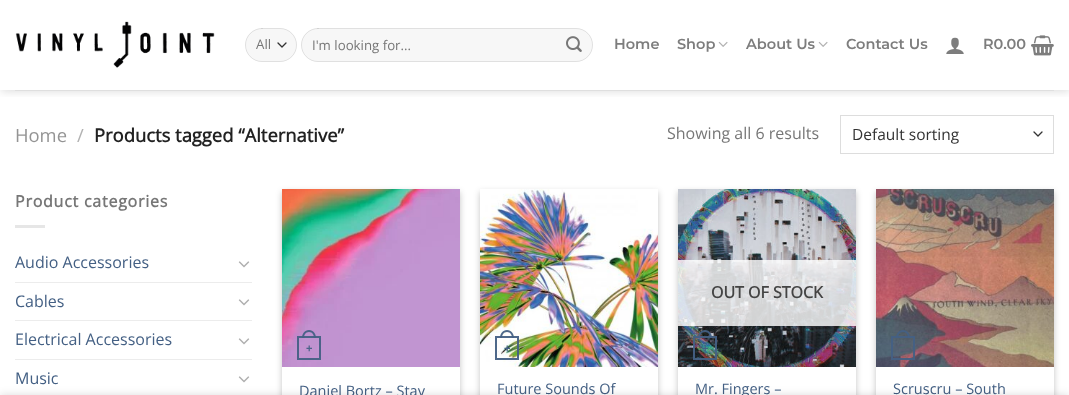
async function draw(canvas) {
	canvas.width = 1069;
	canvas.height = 395;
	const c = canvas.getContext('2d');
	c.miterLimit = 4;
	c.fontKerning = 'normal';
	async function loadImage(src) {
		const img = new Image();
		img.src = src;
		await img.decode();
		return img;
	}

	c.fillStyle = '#fff';
	c.fillRect(0, 0, 1069, 395);
	c.save();
	c.beginPath();
	c.rect(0, 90, 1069, 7);
	c.clip();
	c.fillStyle = '#00000026';
	c.filter = 'blur(5px)';
	c.beginPath();
	c.rect(1, 1, 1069, 90);
	c.fill();
	c.filter = 'none';
	c.restore();
	c.drawImage(await loadImage('img1.png'), 15, 21, 200, 47);
	c.fillStyle = '#f7f7f7';
	c.beginPath();
	c.roundRect(245, 28, 52, 34, 17);
	c.fill();
	c.beginPath();
	c.moveTo(278, 43);
	c.lineTo(282, 47);
	c.lineTo(286, 43);
	c.strokeStyle = '#333';
	c.lineWidth = 1.3;
	c.lineCap = 'round';
	c.lineJoin = 'round';
	c.stroke();
	c.beginPath();
	c.roundRect(245.5, 28.5, 51, 33, 16.5);
	c.strokeStyle = '#00000017';
	c.lineWidth = 1;
	c.lineJoin = 'miter';
	c.stroke();
	c.font = '13.25px Open Sans';
	c.fillStyle = '#777';
	c.fillText('All', 256, 49);
	c.fillStyle = '#f7f7f7';
	c.beginPath();
	c.roundRect(301, 28, 292, 34, 17);
	c.fill();
	c.beginPath();
	c.roundRect(301.5, 28.5, 291, 33, 16.5);
	c.stroke();
	c.fillStyle = '#777';
	c.fillText('I\'m looking for...', 312, 50);
	c.drawImage(await loadImage('img2.png'), 566, 36, 16, 16);
	c.font = '600 14.5px Montserrat';
	c.fillStyle = '#7d7d7d';
	c.fillText('Home', 614, 49);
	c.fillText('Shop', 677, 49);
	c.drawImage(await loadImage('img3.png'), 718, 41, 10, 6);
	c.fillText('About Us', 746, 49);
	c.drawImage(await loadImage('img3.png'), 818, 41, 10, 6);
	c.fillText('Contact Us', 846, 49);
	c.drawImage(await loadImage('img4.png'), 946, 37, 18, 17);
	c.fillText('R0.00', 983, 49);
	c.drawImage(await loadImage('img5.png'), 1031, 35, 23, 21);
	c.fillStyle = '#dfdfdf';
	c.fillRect(15, 90, 1039, 1);
	c.font = '18.4px Open Sans';
	c.fillStyle = '#949494';
	c.fillText('Home', 15, 142);
	c.fillStyle = '#b2b2b2';
	c.fillText('/', 77, 142);
	c.font = 'bold 18.4px Open Sans';
	c.fillStyle = '#222';
	c.fillText('Products tagged “Alternative”', 94, 142);
	c.font = '16px Open Sans';
	c.fillStyle = '#777';
	c.fillText('Showing all 6 results', 667, 139);
	c.beginPath();
	c.moveTo(1034, 132);
	c.lineTo(1038, 136);
	c.lineTo(1042, 132);
	c.strokeStyle = '#333';
	c.lineWidth = 1.3;
	c.lineJoin = 'round';
	c.stroke();
	c.strokeStyle = '#ddd';
	c.lineWidth = 1;
	c.lineJoin = 'miter';
	c.strokeRect(840.5, 115.5, 213, 38);
	c.font = '15.5px Open Sans';
	c.fillStyle = '#333';
	c.fillText('Default sorting', 852, 140);
	c.letterSpacing = '0.75px';
	c.font = 'bold 16px Open Sans';
	c.fillStyle = '#777';
	c.fillText('Product categories', 15, 207);
	c.fillStyle = '#e6e6e6';
	c.fillRect(15, 225, 30, 3);
	c.letterSpacing = '0px';
	c.font = '16px Open Sans';
	c.fillStyle = '#446084';
	c.fillText('Audio Accessories', 15, 268);
	c.drawImage(await loadImage('img6.png'), 238, 261, 12, 7);
	c.fillStyle = '#ececec';
	c.fillRect(15, 282, 237, 1);
	c.fillStyle = '#446084';
	c.fillText('Cables', 15, 307);
	c.drawImage(await loadImage('img6.png'), 238, 299, 12, 7);
	c.fillStyle = '#ececec';
	c.fillRect(15, 320, 237, 1);
	c.fillStyle = '#446084';
	c.fillText('Electrical Accessories', 15, 345);
	c.drawImage(await loadImage('img6.png'), 238, 338, 12, 7);
	c.fillStyle = '#ececec';
	c.fillRect(15, 359, 237, 1);
	c.fillStyle = '#446084';
	c.fillText('Music', 15, 384);
	c.drawImage(await loadImage('img6.png'), 238, 376, 12, 7);
	c.save();
	c.beginPath();
	c.moveTo(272, 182);
	c.lineTo(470, 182);
	c.lineTo(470, 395);
	c.lineTo(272, 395);
	c.closePath();
	c.moveTo(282, 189);
	c.lineTo(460, 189);
	c.lineTo(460, 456);
	c.lineTo(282, 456);
	c.closePath();
	c.clip('evenodd');
	c.fillStyle = '#0000003b';
	c.filter = 'blur(3px)';
	c.beginPath();
	c.rect(282, 192, 178, 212);
	c.fill();
	c.filter = 'none';
	c.restore();
	c.drawImage(await loadImage('img7.png'), 282, 189, 178, 178);
	c.strokeStyle = '#446084f2';
	c.lineWidth = 2;
	c.strokeRect(298, 337, 22, 22);
	c.fillStyle = '#446084f2';
	c.beginPath();
	c.moveTo(309, 330);
	c.bezierCurveTo(313.5, 330, 316, 334, 316, 338);
	c.lineTo(302, 338);
	c.bezierCurveTo(302, 334, 304.5, 330, 309, 330);
	c.closePath();
	c.moveTo(309, 332);
	c.bezierCurveTo(312.5, 332, 314, 335, 314, 338);
	c.lineTo(304, 338);
	c.bezierCurveTo(304, 335, 305.5, 332, 309, 332);
	c.closePath();
	c.fill('evenodd');
	c.font = 'bold 11px Liberation Sans';
	c.fillStyle = '#4a6388';
	c.fillText('+', 306, 352);
	c.font = '14.5px Open Sans';
	c.fillStyle = '#446084';
	c.fillText('Daniel Bortz – Stay', 299, 396);
	c.save();
	c.beginPath();
	c.moveTo(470, 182);
	c.lineTo(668, 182);
	c.lineTo(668, 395);
	c.lineTo(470, 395);
	c.closePath();
	c.moveTo(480, 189);
	c.lineTo(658, 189);
	c.lineTo(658, 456);
	c.lineTo(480, 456);
	c.closePath();
	c.clip('evenodd');
	c.fillStyle = '#0000003b';
	c.filter = 'blur(3px)';
	c.beginPath();
	c.rect(480, 192, 178, 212);
	c.fill();
	c.filter = 'none';
	c.restore();
	c.drawImage(await loadImage('img8.png'), 480, 189, 178, 178);
	c.strokeRect(496, 337, 22, 22);
	c.fillStyle = '#446084f2';
	c.beginPath();
	c.moveTo(507, 330);
	c.bezierCurveTo(511.5, 330, 514, 334, 514, 338);
	c.lineTo(500, 338);
	c.bezierCurveTo(500, 334, 502.5, 330, 507, 330);
	c.closePath();
	c.moveTo(507, 332);
	c.bezierCurveTo(510.5, 332, 512, 335, 512, 338);
	c.lineTo(502, 338);
	c.bezierCurveTo(502, 335, 503.5, 332, 507, 332);
	c.closePath();
	c.fill('evenodd');
	c.font = 'bold 11px Liberation Sans';
	c.fillStyle = '#446084';
	c.fillText('+', 504, 352);
	c.font = '14.5px Open Sans';
	c.fillText('Future Sounds Of', 497, 394);
	c.save();
	c.beginPath();
	c.moveTo(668, 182);
	c.lineTo(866, 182);
	c.lineTo(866, 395);
	c.lineTo(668, 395);
	c.closePath();
	c.moveTo(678, 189);
	c.lineTo(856, 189);
	c.lineTo(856, 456);
	c.lineTo(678, 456);
	c.closePath();
	c.clip('evenodd');
	c.fillStyle = '#0000003b';
	c.filter = 'blur(3px)';
	c.beginPath();
	c.rect(678, 192, 178, 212);
	c.fill();
	c.filter = 'none';
	c.restore();
	c.drawImage(await loadImage('img9.png'), 678, 189, 178, 178);
	c.fillStyle = '#ffffffcf';
	c.fillRect(678, 260, 178, 66);
	c.font = 'bold 16px Open Sans';
	c.fillStyle = '#444';
	c.fillText('OUT OF STOCK', 711, 298);
	c.strokeRect(694, 337, 22, 22);
	c.fillStyle = '#446084f2';
	c.beginPath();
	c.moveTo(705, 330);
	c.bezierCurveTo(709.5, 330, 712, 334, 712, 338);
	c.lineTo(698, 338);
	c.bezierCurveTo(698, 334, 700.5, 330, 705, 330);
	c.closePath();
	c.moveTo(705, 332);
	c.bezierCurveTo(708.5, 332, 710, 335, 710, 338);
	c.lineTo(700, 338);
	c.bezierCurveTo(700, 335, 701.5, 332, 705, 332);
	c.closePath();
	c.fill('evenodd');
	c.font = 'bold 11px Liberation Sans';
	c.fillStyle = '#446084';
	c.fillText('+', 702, 352);
	c.font = '14.5px Open Sans';
	c.fillText('Mr. Fingers –', 695, 394);
	c.save();
	c.beginPath();
	c.moveTo(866, 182);
	c.lineTo(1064, 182);
	c.lineTo(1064, 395);
	c.lineTo(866, 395);
	c.closePath();
	c.moveTo(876, 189);
	c.lineTo(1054, 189);
	c.lineTo(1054, 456);
	c.lineTo(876, 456);
	c.closePath();
	c.clip('evenodd');
	c.fillStyle = '#0000003b';
	c.filter = 'blur(3px)';
	c.beginPath();
	c.rect(876, 192, 178, 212);
	c.fill();
	c.filter = 'none';
	c.restore();
	c.drawImage(await loadImage('img10.png'), 876, 189, 178, 178);
	c.strokeRect(892, 337, 22, 22);
	c.fillStyle = '#446084f2';
	c.beginPath();
	c.moveTo(903, 330);
	c.bezierCurveTo(907.5, 330, 910, 334, 910, 338);
	c.lineTo(896, 338);
	c.bezierCurveTo(896, 334, 898.5, 330, 903, 330);
	c.closePath();
	c.moveTo(903, 332);
	c.bezierCurveTo(906.5, 332, 908, 335, 908, 338);
	c.lineTo(898, 338);
	c.bezierCurveTo(898, 335, 899.5, 332, 903, 332);
	c.closePath();
	c.fill('evenodd');
	c.fillStyle = '#446084';
	c.fillText('Scruscru – South', 893, 394);
	c.fillStyle = '#00000024';
	c.filter = 'blur(4.5px)';
	c.beginPath();
	c.rect(0, 395, 1069, 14);
	c.fill();
	c.filter = 'none';
}

draw(document.querySelector('canvas'));
